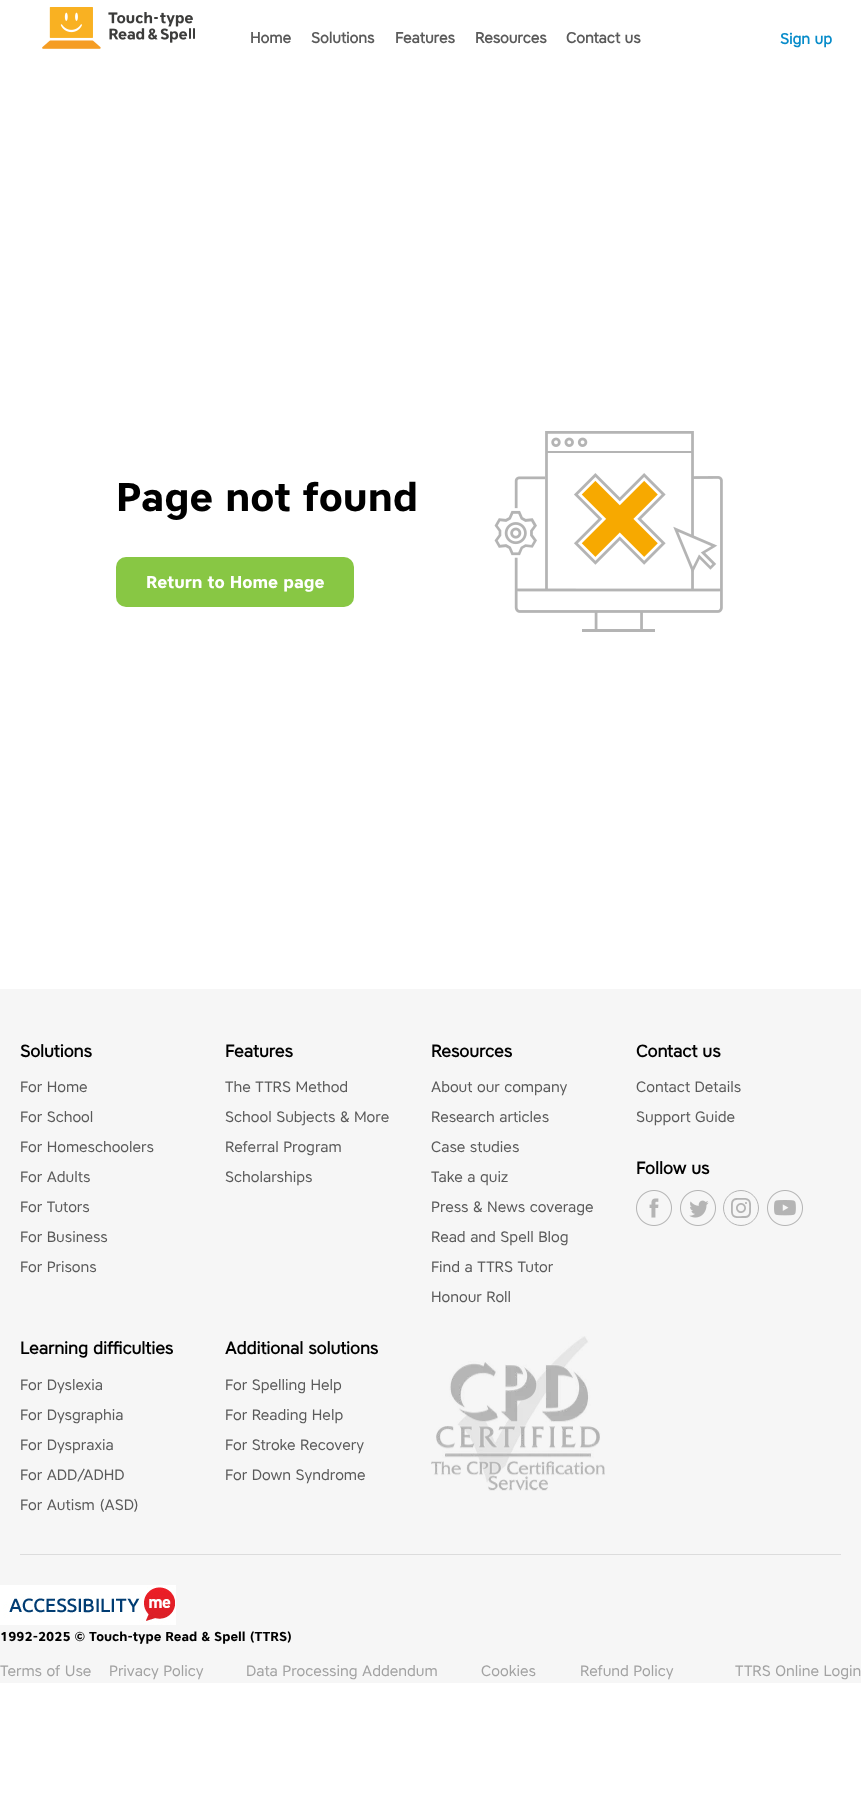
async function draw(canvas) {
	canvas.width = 861;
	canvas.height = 1813;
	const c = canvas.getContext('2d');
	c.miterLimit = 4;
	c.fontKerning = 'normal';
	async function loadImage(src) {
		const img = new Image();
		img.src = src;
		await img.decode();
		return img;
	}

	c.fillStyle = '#fff';
	c.fillRect(0, 0, 861, 1813);
	c.drawImage(await loadImage('img1.png'), 42, 7, 153, 42);
	c.font = 'bold 15px "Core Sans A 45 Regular"';
	c.fillStyle = '#5a5a5a';
	for (const [text, x, y] of [
		['Home', 250, 43],
		['Solutions', 311, 43],
		['Features', 395, 43],
		['Resources', 475, 43],
		['Contact us', 566, 43],
	]) {
		c.fillText(text, x, y);
	}
	c.fillStyle = '#088cca';
	c.fillText('Sign up', 780, 44);
	c.font = 'bold 40px "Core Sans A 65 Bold"';
	c.fillStyle = '#000';
	c.fillText('Page not found', 116, 511);
	c.fillStyle = '#88c744';
	c.beginPath();
	c.roundRect(116, 557, 238, 50, 10);
	c.fill();
	c.font = 'bold 17px "Core Sans A 65 Bold"';
	c.fillStyle = '#fff';
	c.fillText('Return to Home page', 146, 588);
	c.drawImage(await loadImage('img2.png'), 494, 431, 229, 201);
	c.fillStyle = '#f6f6f6';
	c.fillRect(0, 989, 861, 694);
	c.fillStyle = '#dcdcdc';
	c.fillRect(20, 1554, 821, 1);
	c.font = 'bold 17px "Core Sans A 45 Regular"';
	c.fillStyle = '#000';
	c.fillText('Solutions', 20, 1057);
	c.font = '15px "Core Sans A 45 Regular"';
	c.fillStyle = '#5a5a5a';
	for (const [text, x, y] of [
		['For Home', 20, 1092],
		['For School', 20, 1122],
		['For Homeschoolers', 20, 1152],
		['For Adults', 20, 1182],
		['For Tutors', 20, 1212],
		['For Business', 20, 1242],
		['For Prisons', 20, 1272],
	]) {
		c.fillText(text, x, y);
	}
	c.font = 'bold 17px "Core Sans A 45 Regular"';
	c.fillStyle = '#000';
	c.fillText('Features', 225, 1057);
	c.font = '15px "Core Sans A 45 Regular"';
	c.fillStyle = '#5a5a5a';
	for (const [text, x, y] of [
		['The TTRS Method', 225, 1092],
		['School Subjects & More', 225, 1122],
		['Referral Program', 225, 1152],
		['Scholarships', 225, 1182],
	]) {
		c.fillText(text, x, y);
	}
	c.font = 'bold 17px "Core Sans A 45 Regular"';
	c.fillStyle = '#000';
	c.fillText('Resources', 431, 1057);
	c.font = '15px "Core Sans A 45 Regular"';
	c.fillStyle = '#5a5a5a';
	for (const [text, x, y] of [
		['About our company', 431, 1092],
		['Research articles', 431, 1122],
		['Case studies', 431, 1152],
		['Take a quiz', 431, 1182],
		['Press & News coverage', 431, 1212],
		['Read and Spell Blog', 431, 1242],
		['Find a TTRS Tutor', 431, 1272],
		['Honour Roll', 431, 1302],
	]) {
		c.fillText(text, x, y);
	}
	c.font = 'bold 17px "Core Sans A 45 Regular"';
	c.fillStyle = '#000';
	c.fillText('Contact us', 636, 1057);
	c.font = '15px "Core Sans A 45 Regular"';
	c.fillStyle = '#5a5a5a';
	c.fillText('Contact Details', 636, 1092);
	c.fillText('Support Guide', 636, 1122);
	c.font = 'bold 17px "Core Sans A 45 Regular"';
	c.fillStyle = '#000';
	c.fillText('Follow us', 636, 1174);
	c.drawImage(await loadImage('img3.png'), 636, 1190, 36, 36);
	c.drawImage(await loadImage('img4.png'), 680, 1190, 36, 36);
	c.drawImage(await loadImage('img5.png'), 723, 1190, 36, 36);
	c.drawImage(await loadImage('img6.png'), 767, 1190, 36, 36);
	c.fillText('Learning difficulties', 20, 1354);
	c.font = '15px "Core Sans A 45 Regular"';
	c.fillStyle = '#5a5a5a';
	for (const [text, x, y] of [
		['For Dyslexia', 20, 1390],
		['For Dysgraphia', 20, 1420],
		['For Dyspraxia', 20, 1450],
		['For ADD/ADHD', 20, 1480],
		['For Autism (ASD)', 20, 1510],
	]) {
		c.fillText(text, x, y);
	}
	c.font = 'bold 17px "Core Sans A 45 Regular"';
	c.fillStyle = '#000';
	c.fillText('Additional solutions', 225, 1354);
	c.font = '15px "Core Sans A 45 Regular"';
	c.fillStyle = '#5a5a5a';
	for (const [text, x, y] of [
		['For Spelling Help', 225, 1390],
		['For Reading Help', 225, 1420],
		['For Stroke Recovery', 225, 1450],
		['For Down Syndrome', 225, 1480],
	]) {
		c.fillText(text, x, y);
	}
	c.drawImage(await loadImage('img7.png'), 431, 1336, 174, 155);
	c.drawImage(await loadImage('img8.png'), 0, 1585, 176, 40);
	c.font = 'bold 13px "Core Sans A 65 Bold"';
	c.fillStyle = '#000';
	c.fillText('1992-2025 © Touch-type Read & Spell (TTRS)', 0, 1641);
	c.font = '15px "Core Sans A 45 Regular"';
	c.fillStyle = '#a2a2a2';
	for (const [text, x, y] of [
		['Terms of Use', 0, 1676],
		['Privacy Policy', 109, 1676],
		['Data Processing Addendum', 246, 1676],
		['Cookies', 481, 1676],
		['Refund Policy', 580, 1676],
		['TTRS Online Login', 735, 1676],
	]) {
		c.fillText(text, x, y);
	}
}

draw(document.querySelector('canvas'));
